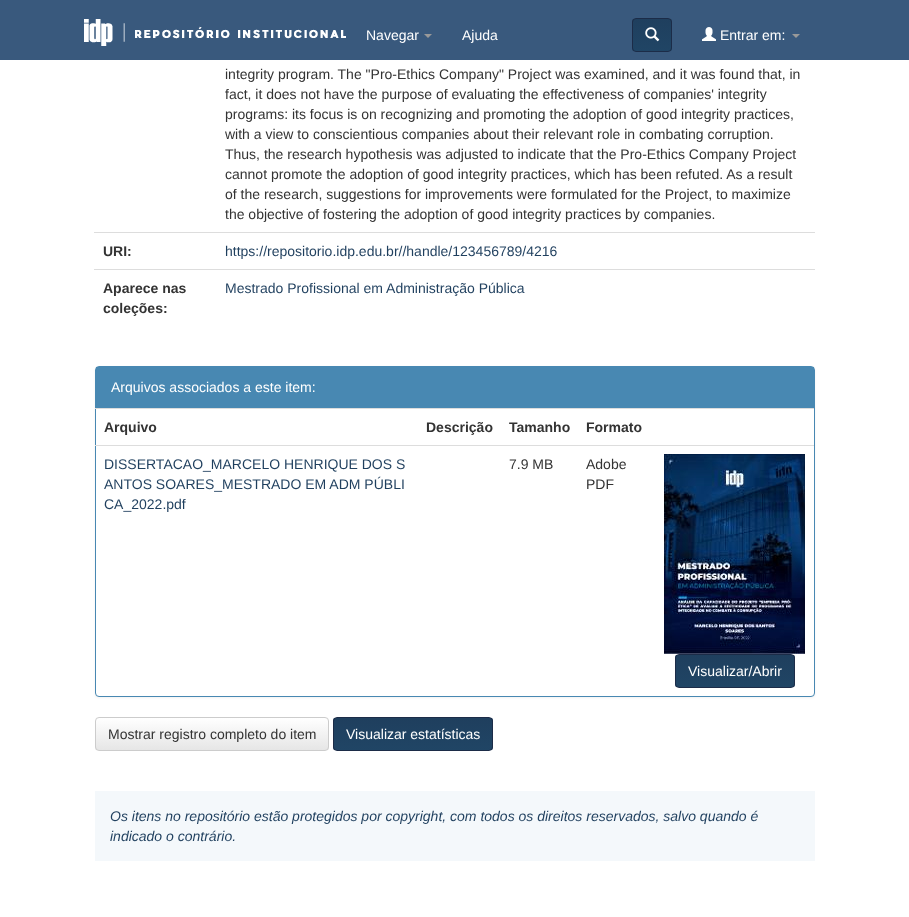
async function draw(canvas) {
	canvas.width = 909;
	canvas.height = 917;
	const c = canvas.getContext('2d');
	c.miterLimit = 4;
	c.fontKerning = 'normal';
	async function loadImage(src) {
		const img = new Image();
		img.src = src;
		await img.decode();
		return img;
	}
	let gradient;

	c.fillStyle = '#fff';
	c.fillRect(0, 0, 909, 917);
	c.fillStyle = '#39597d';
	c.fillRect(0, 0, 909, 60);
	c.drawImage(await loadImage('img1.png'), 84, 19, 262, 27);
	c.font = '14px Liberation Sans';
	c.fillStyle = '#fff';
	c.fillText('Navegar', 366, 40);
	c.fillStyle = '#999';
	c.beginPath();
	c.moveTo(424, 34);
	c.lineTo(432, 34);
	c.lineTo(428, 38);
	c.closePath();
	c.fill();
	c.fillStyle = '#fff';
	c.fillText('Ajuda', 462, 40);
	c.save();
	c.beginPath();
	c.roundRect(632, 18, 40, 34, 4);
	c.clip();
	gradient = c.createLinearGradient(652, 19, 652, 51);
	gradient.addColorStop(0, '#1f3f5e');
	gradient.addColorStop(1, '#204565');
	c.fillStyle = gradient;
	c.fillRect(632, 19, 40, 32);
	c.restore();
	c.beginPath();
	c.roundRect(632.5, 18.5, 39, 33, 3.5);
	c.strokeStyle = '#1c2c48';
	c.stroke();
	c.drawImage(await loadImage('img2.png'), 645, 27, 15, 15);
	c.drawImage(await loadImage('img3.png'), 702, 27, 14, 14);
	c.fillText('Entrar em:', 720, 40);
	c.fillStyle = '#999';
	c.beginPath();
	c.moveTo(792, 34);
	c.lineTo(800, 34);
	c.lineTo(796, 38);
	c.closePath();
	c.fill();
	c.fillStyle = '#333';
	for (const [text, x, y] of [
		['integrity program. The "Pro-Ethics Company" Project was examined, and it was found that, in', 225, 79],
		['fact, it does not have the purpose of evaluating the effectiveness of companies\' integrity', 225, 99],
		['programs: its focus is on recognizing and promoting the adoption of good integrity practices,', 225, 119],
		['with a view to conscientious companies about their relevant role in combating corruption.', 225, 139],
		['Thus, the research hypothesis was adjusted to indicate that the Pro-Ethics Company Project', 225, 159],
		['cannot promote the adoption of good integrity practices, which has been refuted. As a result', 225, 179],
		['of the research, suggestions for improvements were formulated for the Project, to maximize', 225, 199],
		['the objective of fostering the adoption of good integrity practices by companies.', 225, 219],
	]) {
		c.fillText(text, x, y);
	}
	c.font = 'bold 14px Liberation Sans';
	c.fillText('URI:', 103, 256);
	c.fillStyle = '#ddd';
	c.fillRect(94, 232, 721, 1);
	c.font = '14px Liberation Sans';
	c.fillStyle = '#1f3f5e';
	c.fillText('https://repositorio.idp.edu.br//handle/123456789/4216', 225, 256);
	c.font = 'bold 14px Liberation Sans';
	c.fillStyle = '#333';
	c.fillText('Aparece nas', 103, 293);
	c.fillText('coleções:', 103, 313);
	c.fillStyle = '#ddd';
	c.fillRect(94, 269, 721, 1);
	c.font = '14px Liberation Sans';
	c.fillStyle = '#1f3f5e';
	c.fillText('Mestrado Profissional em Administração Pública', 225, 293);
	c.fillStyle = '#0000000d';
	c.filter = 'blur(1px)';
	c.beginPath();
	c.roundRect(95, 367, 720, 331, 4);
	c.fill();
	c.filter = 'none';
	c.fillStyle = '#fff';
	c.beginPath();
	c.roundRect(95.5, 366.5, 719, 330, 3.5);
	c.fill();
	c.strokeStyle = '#4888b2';
	c.stroke();
	c.fillStyle = '#4888b2';
	c.fillRect(96, 367, 718, 41);
	c.fillStyle = '#fff';
	c.fillText('Arquivos associados a este item:', 111, 392);
	c.fillStyle = '#ddd';
	c.fillRect(95, 408, 719, 1);
	c.font = 'bold 14px Liberation Sans';
	c.fillStyle = '#333';
	for (const [text, x, y] of [
		['Arquivo', 104, 432],
		['Descrição', 426, 432],
		['Tamanho', 509, 432],
		['Formato', 586, 432],
	]) {
		c.fillText(text, x, y);
	}
	c.font = '14px Liberation Sans';
	c.fillStyle = '#1f3f5e';
	for (const [text, x, y] of [
		['DISSERTACAO_MARCELO HENRIQUE DOS S', 104, 469],
		['ANTOS SOARES_MESTRADO EM ADM PÚBLI', 104, 489],
		['CA_2022.pdf', 104, 509],
	]) {
		c.fillText(text, x, y);
	}
	c.fillStyle = '#333';
	for (const [text, x, y] of [
		['7.9 MB', 509, 469],
		['Adobe', 586, 469],
		['PDF', 586, 489],
	]) {
		c.fillText(text, x, y);
	}
	c.fillStyle = '#ddd';
	c.fillRect(95, 445, 719, 1);
	c.drawImage(await loadImage('img4.png'), 664, 454, 141, 200);
	c.save();
	c.beginPath();
	c.roundRect(675, 654, 120, 34, 4);
	c.clip();
	gradient = c.createLinearGradient(735, 655, 735, 687);
	gradient.addColorStop(0, '#1f3f5e');
	gradient.addColorStop(1, '#204565');
	c.fillStyle = gradient;
	c.fillRect(675, 655, 120, 32);
	c.restore();
	c.beginPath();
	c.roundRect(675.5, 654.5, 119, 33, 3.5);
	c.strokeStyle = '#1c2c48';
	c.stroke();
	c.fillStyle = '#fff';
	c.fillText('Visualizar/Abrir', 688, 676);
	c.save();
	c.beginPath();
	c.roundRect(95, 717, 234, 34, 4);
	c.clip();
	gradient = c.createLinearGradient(212, 718, 212, 750);
	gradient.addColorStop(0, '#fff');
	gradient.addColorStop(1, '#e6e6e6');
	c.fillStyle = gradient;
	c.fillRect(95, 718, 234, 32);
	c.restore();
	c.beginPath();
	c.roundRect(95.5, 717.5, 233, 33, 3.5);
	c.strokeStyle = '#ccc';
	c.stroke();
	c.fillStyle = '#333';
	c.fillText('Mostrar registro completo do item', 108, 739);
	c.save();
	c.beginPath();
	c.roundRect(333, 717, 160, 34, 4);
	c.clip();
	gradient = c.createLinearGradient(413, 718, 413, 750);
	gradient.addColorStop(0, '#1f3f5e');
	gradient.addColorStop(1, '#204565');
	c.fillStyle = gradient;
	c.fillRect(333, 718, 160, 32);
	c.restore();
	c.beginPath();
	c.roundRect(333.5, 717.5, 159, 33, 3.5);
	c.strokeStyle = '#1c2c48';
	c.stroke();
	c.fillStyle = '#fff';
	c.fillText('Visualizar estatísticas', 346, 739);
	c.fillStyle = '#f4f8fb';
	c.fillRect(95, 791, 720, 70);
	c.font = 'italic 14px Liberation Sans';
	c.fillStyle = '#1f3f5e';
	c.fillText('Os itens no repositório estão protegidos por copyright, com todos os direitos reservados, salvo quando é', 110, 821);
	c.fillText('indicado o contrário.', 110, 841);
}

draw(document.querySelector('canvas'));
